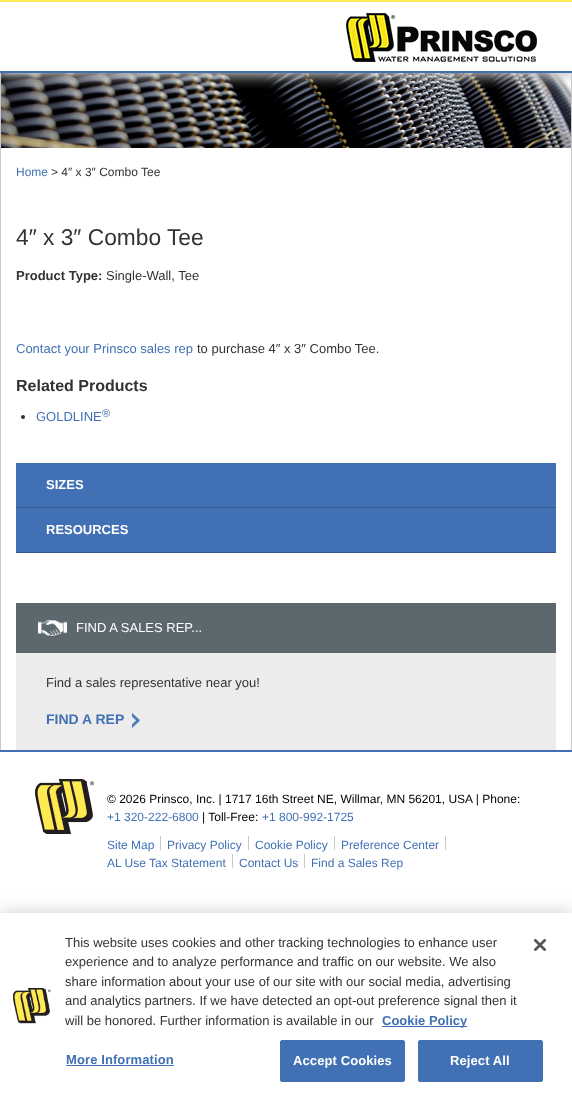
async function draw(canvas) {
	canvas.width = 572;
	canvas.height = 1099;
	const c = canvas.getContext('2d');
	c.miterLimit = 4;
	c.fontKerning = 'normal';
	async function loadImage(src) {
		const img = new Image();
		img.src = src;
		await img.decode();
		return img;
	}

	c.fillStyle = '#fff';
	c.fillRect(0, 0, 572, 1099);
	c.fillStyle = '#c9c9c9';
	c.fillRect(571, 73, 1, 677);
	c.fillRect(0, 73, 1, 677);
	c.drawImage(await loadImage('img2.png'), 1, 73, 570, 75);
	c.save();
	c.beginPath();
	c.rect(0, 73, 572, 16);
	c.clip();
	c.filter = 'blur(6.5px)';
	c.beginPath();
	c.rect(0, 3, 572, 73);
	c.fill();
	c.filter = 'none';
	c.restore();
	c.fillStyle = '#ffea52';
	c.fillRect(0, 0, 572, 2);
	c.fillStyle = '#4171b4';
	c.fillRect(0, 71, 572, 2);
	c.drawImage(await loadImage('img1.png'), 346, 13, 191, 49);
	c.font = '12px Liberation Sans';
	c.fillText('Home', 16, 176);
	c.fillStyle = '#333';
	c.fillText('> 4″ x 3″ Combo Tee', 51, 176);
	c.font = '22.75px Liberation Sans';
	c.fillText('4″ x 3″ Combo Tee', 16, 245);
	c.font = 'bold 13px Liberation Sans';
	c.fillText('Product Type:', 16, 280);
	c.font = '13px Liberation Sans';
	c.fillText('Single-Wall, Tee', 106, 280);
	c.fillStyle = '#4171b4';
	c.fillText('Contact your Prinsco sales rep', 16, 353);
	c.fillStyle = '#333';
	c.fillText('to purchase 4″ x 3″ Combo Tee.', 197, 353);
	c.font = 'bold 16px Liberation Sans';
	c.fillText('Related Products', 16, 391);
	c.beginPath();
	c.arc(23, 417, 2, 0, 2 * Math.PI);
	c.fill();
	c.font = '13px Liberation Sans';
	c.fillStyle = '#4171b4';
	c.fillText('GOLDLINE', 36, 421);
	c.font = '11px Liberation Sans';
	c.fillText('®', 102, 417);
	c.fillRect(16, 463, 540, 44);
	c.fillStyle = '#33588d';
	c.fillRect(16, 507, 540, 1);
	c.font = 'bold 13px Liberation Sans';
	c.fillStyle = '#fff';
	c.fillText('SIZES', 46, 489);
	c.fillStyle = '#4171b4';
	c.fillRect(16, 508, 540, 44);
	c.fillStyle = '#33588d';
	c.fillRect(16, 552, 540, 1);
	c.fillStyle = '#fff';
	c.fillText('RESOURCES', 46, 534);
	c.fillStyle = '#5c676e';
	c.fillRect(16, 603, 540, 50);
	c.drawImage(await loadImage('img3.png'), 38, 620, 29, 16);
	c.font = '13px Liberation Sans';
	c.fillStyle = '#fff';
	c.fillText('FIND A SALES REP...', 76, 632);
	c.fillStyle = '#ececec';
	c.fillRect(16, 653, 540, 97);
	c.fillStyle = '#333';
	c.fillText('Find a sales representative near you!', 46, 687);
	c.drawImage(await loadImage('img4.png'), 132, 713, 8, 15);
	c.font = 'bold 14px Liberation Sans';
	c.fillStyle = '#4171b4';
	c.fillText('FIND A REP', 46, 724);
	c.fillRect(0, 750, 572, 2);
	c.drawImage(await loadImage('img5.png'), 35, 779, 59, 55);
	c.font = '12px Liberation Sans';
	c.fillStyle = '#000';
	c.fillText('© 2026 Prinsco, Inc. | 1717 16th Street NE, Willmar, MN 56201, USA | Phone:', 107, 803);
	c.fillStyle = '#4171b4';
	c.fillText('+1 320-222-6800', 107, 821);
	c.fillStyle = '#000';
	c.fillText('| Toll-Free:', 202, 821);
	c.fillStyle = '#4171b4';
	c.fillText('+1 800-992-1725', 262, 821);
	c.fillText('Site Map', 107, 849);
	c.fillStyle = '#c9c9c9';
	c.fillRect(160, 836, 1, 14);
	c.fillStyle = '#4171b4';
	c.fillText('Privacy Policy', 167, 849);
	c.fillStyle = '#c9c9c9';
	c.fillRect(248, 836, 1, 14);
	c.fillStyle = '#4171b4';
	c.fillText('Cookie Policy', 255, 849);
	c.fillStyle = '#c9c9c9';
	c.fillRect(334, 836, 1, 14);
	c.fillStyle = '#4171b4';
	c.fillText('Preference Center', 341, 849);
	c.fillStyle = '#c9c9c9';
	c.fillRect(445, 836, 1, 14);
	c.fillStyle = '#4171b4';
	c.fillText('AL Use Tax Statement', 107, 867);
	c.fillStyle = '#c9c9c9';
	c.fillRect(232, 854, 1, 14);
	c.fillStyle = '#4171b4';
	c.fillText('Contact Us', 239, 867);
	c.fillStyle = '#c9c9c9';
	c.fillRect(304, 854, 1, 14);
	c.fillStyle = '#4171b4';
	c.fillText('Find a Sales Rep', 311, 867);
	c.fillStyle = '#00000033';
	c.filter = 'blur(9px)';
	c.beginPath();
	c.rect(0, 913, 572, 186);
	c.fill();
	c.filter = 'none';
	c.fillStyle = '#fff';
	c.fillRect(0, 913, 572, 186);
	c.drawImage(await loadImage('img6.png'), 13, 988, 38, 36);
	c.font = '13px Liberation Sans';
	c.fillStyle = '#333';
	for (const [text, x, y] of [
		['This website uses cookies and other tracking technologies to enhance user', 65, 947],
		['experience and to analyze performance and traffic on our website. We also', 65, 966],
		['share information about your use of our site with our social media, advertising', 65, 986],
		['and analytics partners. If we have detected an opt-out preference signal then it', 65, 1005],
		['will be honored. Further information is available in our', 65, 1025],
	]) {
		c.fillText(text, x, y);
	}
	c.fillStyle = '#4171b4';
	c.fillRect(382, 1026, 85, 1);
	c.font = 'bold 13px Liberation Sans';
	c.fillText('Cookie Policy', 382, 1025);
	c.letterSpacing = '0.1px';
	c.fillText('More Information', 66, 1064);
	c.fillRect(66, 1065, 108, 1);
	c.beginPath();
	c.roundRect(280.5, 1040.5, 124, 41, 1.5);
	c.fill();
	c.strokeStyle = '#4171b4';
	c.stroke();
	c.fillStyle = '#fff';
	c.fillText('Accept Cookies', 293, 1065);
	c.fillStyle = '#4171b4';
	c.beginPath();
	c.roundRect(418.5, 1040.5, 124, 41, 1.5);
	c.fill();
	c.stroke();
	c.fillStyle = '#fff';
	c.fillText('Reject All', 450, 1065);
	c.drawImage(await loadImage('img7.png'), 534, 939, 12, 12);
}

draw(document.querySelector('canvas'));
